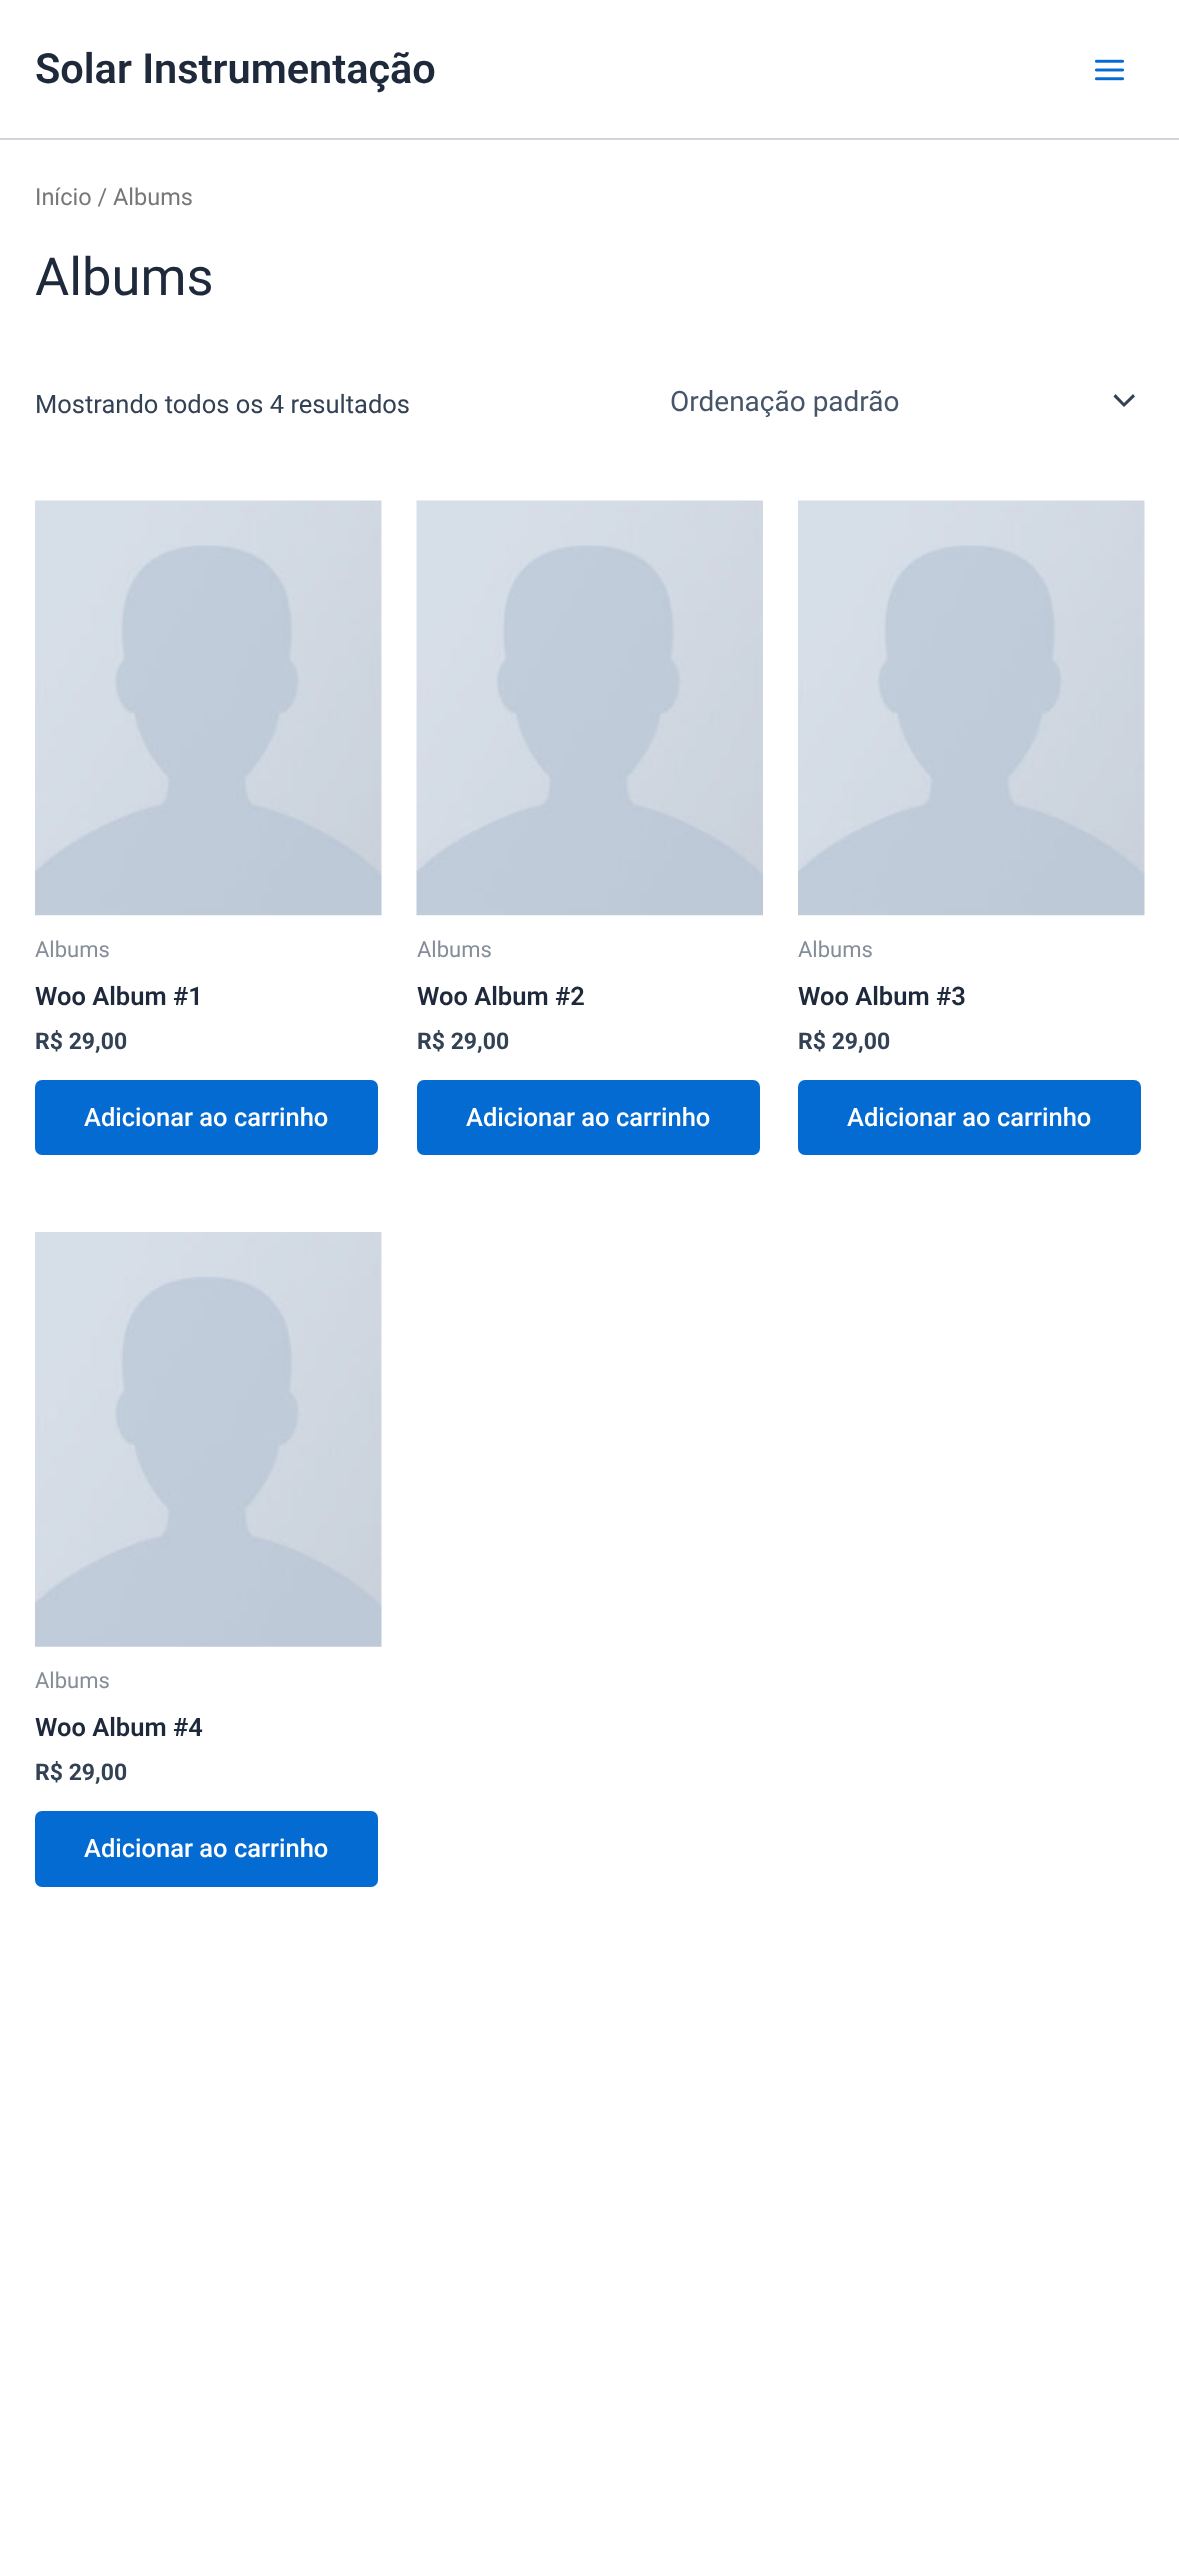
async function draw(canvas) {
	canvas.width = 1179;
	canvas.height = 2559;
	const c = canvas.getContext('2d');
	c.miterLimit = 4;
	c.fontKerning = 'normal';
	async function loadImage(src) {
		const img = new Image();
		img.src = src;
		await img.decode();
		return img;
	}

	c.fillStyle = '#fff';
	c.fillRect(0, 0, 1179, 2559);
	c.fillStyle = '#d1d5db';
	c.fillRect(0, 138, 1179, 2);
	c.font = '600 41.5px Roboto';
	c.fillStyle = '#1e293b';
	c.fillText('Solar Instrumentação', 35, 83);
	c.drawImage(await loadImage('img1.png'), 1094, 59, 31, 22);
	c.font = '23.5px Roboto';
	c.fillStyle = '#777';
	c.fillText('Início / Albums', 35, 205);
	c.font = '52.5px Roboto';
	c.fillStyle = '#1e293b';
	c.fillText('Albums', 35, 295);
	c.font = '25.5px Roboto';
	c.fillStyle = '#334155';
	c.fillText('Mostrando todos os 4 resultados', 35, 413);
	c.beginPath();
	c.moveTo(1113.5, 396.5);
	c.lineTo(1124, 407);
	c.lineTo(1135, 396.5);
	c.lineTo(1133, 394);
	c.lineTo(1124, 403);
	c.lineTo(1115.5, 394);
	c.closePath();
	c.fill();
	c.font = '28px Roboto';
	c.fillStyle = '#475569';
	c.fillText('Ordenação padrão', 670, 411);
	c.drawImage(await loadImage('img2.png'), 35, 500, 347, 416);
	c.font = '22px Roboto';
	c.fillStyle = '#858d99';
	c.fillText('Albums', 35, 957);
	c.font = '600 25.5px Roboto';
	c.fillStyle = '#1e293b';
	c.fillText('Woo Album #1', 35, 1005);
	c.font = 'bold 23px Roboto';
	c.fillStyle = '#334155';
	c.fillText('R$ 29,00', 35, 1049);
	c.fillStyle = '#046bd2';
	c.beginPath();
	c.roundRect(35, 1080, 343, 75, 7);
	c.fill();
	c.font = '500 25.5px Roboto';
	c.fillStyle = '#fff';
	c.fillText('Adicionar ao carrinho', 84, 1126);
	c.drawImage(await loadImage('img3.png'), 416, 500, 347, 416);
	c.font = '22px Roboto';
	c.fillStyle = '#858d99';
	c.fillText('Albums', 417, 957);
	c.font = '600 25.5px Roboto';
	c.fillStyle = '#1e293b';
	c.fillText('Woo Album #2', 417, 1005);
	c.font = 'bold 23px Roboto';
	c.fillStyle = '#334155';
	c.fillText('R$ 29,00', 417, 1049);
	c.fillStyle = '#046bd2';
	c.beginPath();
	c.roundRect(417, 1080, 343, 75, 7);
	c.fill();
	c.font = '500 25.5px Roboto';
	c.fillStyle = '#fff';
	c.fillText('Adicionar ao carrinho', 466, 1126);
	c.drawImage(await loadImage('img2.png'), 798, 500, 347, 416);
	c.font = '22px Roboto';
	c.fillStyle = '#858d99';
	c.fillText('Albums', 798, 957);
	c.font = '600 25.5px Roboto';
	c.fillStyle = '#1e293b';
	c.fillText('Woo Album #3', 798, 1005);
	c.font = 'bold 23px Roboto';
	c.fillStyle = '#334155';
	c.fillText('R$ 29,00', 798, 1049);
	c.fillStyle = '#046bd2';
	c.beginPath();
	c.roundRect(798, 1080, 343, 75, 7);
	c.fill();
	c.font = '500 25.5px Roboto';
	c.fillStyle = '#fff';
	c.fillText('Adicionar ao carrinho', 847, 1126);
	c.drawImage(await loadImage('img4.png'), 35, 1232, 347, 415);
	c.font = '22px Roboto';
	c.fillStyle = '#858d99';
	c.fillText('Albums', 35, 1688);
	c.font = '600 25.5px Roboto';
	c.fillStyle = '#1e293b';
	c.fillText('Woo Album #4', 35, 1736);
	c.font = 'bold 23px Roboto';
	c.fillStyle = '#334155';
	c.fillText('R$ 29,00', 35, 1780);
	c.fillStyle = '#046bd2';
	c.beginPath();
	c.roundRect(35, 1811, 343, 76, 7);
	c.fill();
	c.font = '500 25.5px Roboto';
	c.fillStyle = '#fff';
	c.fillText('Adicionar ao carrinho', 84, 1857);
}

draw(document.querySelector('canvas'));
